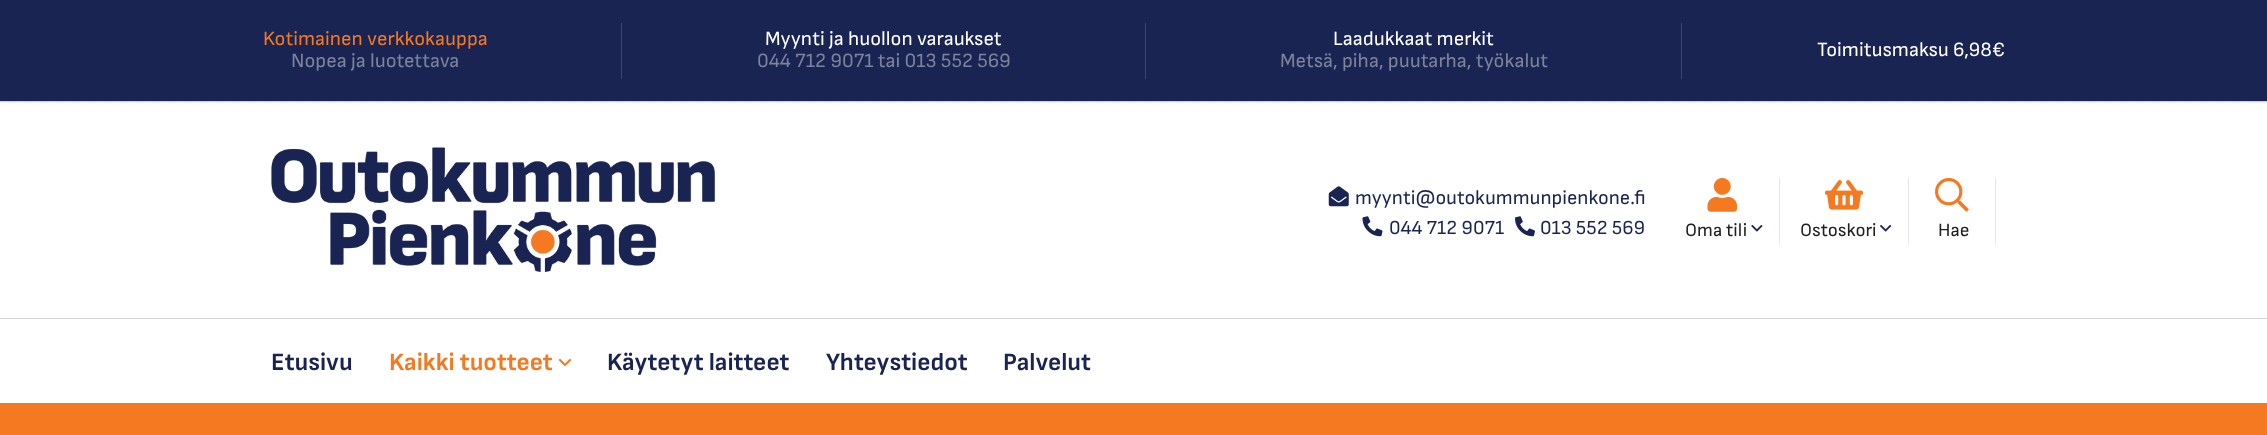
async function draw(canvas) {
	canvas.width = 2267;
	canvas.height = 435;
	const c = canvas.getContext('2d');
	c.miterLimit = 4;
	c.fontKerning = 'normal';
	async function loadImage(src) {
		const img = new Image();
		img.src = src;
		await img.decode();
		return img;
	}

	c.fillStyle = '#f1f2f5';
	c.fillRect(0, 0, 2267, 435);
	c.fillStyle = '#192453';
	c.fillRect(0, 0, 2267, 101);
	c.font = '20.25px Sofia Sans';
	c.fillStyle = '#f47920';
	c.fillText('Kotimainen verkkokauppa', 263, 45);
	c.fillStyle = '#7e839a';
	c.fillText('Nopea ja luotettava', 291, 67);
	c.fillStyle = '#3b456d';
	c.fillRect(621, 23, 1, 56);
	c.fillStyle = '#fff';
	c.fillText('Myynti ja huollon varaukset', 765, 45);
	c.fillStyle = '#7e839a';
	c.fillText('044 712 9071 tai 013 552 569', 757, 67);
	c.fillStyle = '#3b456d';
	c.fillRect(1145, 23, 1, 56);
	c.fillStyle = '#fff';
	c.fillText('Laadukkaat merkit', 1333, 45);
	c.fillStyle = '#7e839a';
	c.fillText('Metsä, piha, puutarha, työkalut', 1280, 67);
	c.fillStyle = '#3b456d';
	c.fillRect(1681, 23, 1, 56);
	c.fillStyle = '#fff';
	c.fillText('Toimitusmaksu 6,98€', 1817, 56);
	c.fillStyle = '#d2d2d2';
	c.fillRect(0, 101, 2267, 1);
	c.fillStyle = '#fff';
	c.fillRect(0, 103, 2267, 215);
	c.drawImage(await loadImage('img1.png'), 271, 147, 444, 125);
	c.drawImage(await loadImage('img2.png'), 1328, 186, 21, 21);
	c.font = '20px Sofia Sans';
	c.fillStyle = '#192453';
	c.fillText('myynti@outokummunpienkone.fi', 1355, 204);
	c.drawImage(await loadImage('img3.png'), 1362, 216, 21, 21);
	c.fillText('044 712 9071', 1389, 234);
	c.drawImage(await loadImage('img4.png'), 1515, 216, 20, 21);
	c.fillText('013 552 569', 1540, 234);
	c.fillStyle = '#e7e7e7';
	c.fillRect(1779, 178, 1, 66);
	c.drawImage(await loadImage('img5.png'), 1707, 178, 31, 34);
	c.font = '18.75px Sofia Sans';
	c.fillStyle = '#212121';
	c.fillText('Oma tili', 1685, 236);
	c.drawImage(await loadImage('img6.png'), 1751, 224, 12, 8);
	c.fillStyle = '#e7e7e7';
	c.fillRect(1908, 178, 1, 66);
	c.drawImage(await loadImage('img7.png'), 1825, 180, 38, 30);
	c.fillStyle = '#212121';
	c.fillText('Ostoskori', 1800, 236);
	c.drawImage(await loadImage('img8.png'), 1880, 224, 12, 8);
	c.fillStyle = '#e7e7e7';
	c.fillRect(1995, 178, 1, 66);
	c.drawImage(await loadImage('img9.png'), 1935, 178, 34, 34);
	c.fillStyle = '#212121';
	c.fillText('Hae', 1938, 236);
	c.fillStyle = '#d2d2d2';
	c.fillRect(0, 318, 2267, 1);
	c.fillStyle = '#fff';
	c.fillRect(0, 319, 2267, 84);
	c.font = 'bold 25px Sofia Sans';
	c.fillStyle = '#192453';
	c.fillText('Etusivu', 271, 370);
	c.fillStyle = '#f47920';
	c.fillText('Kaikki tuotteet', 389, 370);
	c.drawImage(await loadImage('img10.png'), 558, 358, 14, 9);
	c.fillStyle = '#192453';
	for (const [text, x, y] of [
		['Käytetyt laitteet', 607, 370],
		['Yhteystiedot', 826, 370],
		['Palvelut', 1003, 370],
	]) {
		c.fillText(text, x, y);
	}
	c.fillStyle = '#f47920';
	c.fillRect(0, 403, 2267, 32);
}

draw(document.querySelector('canvas'));
